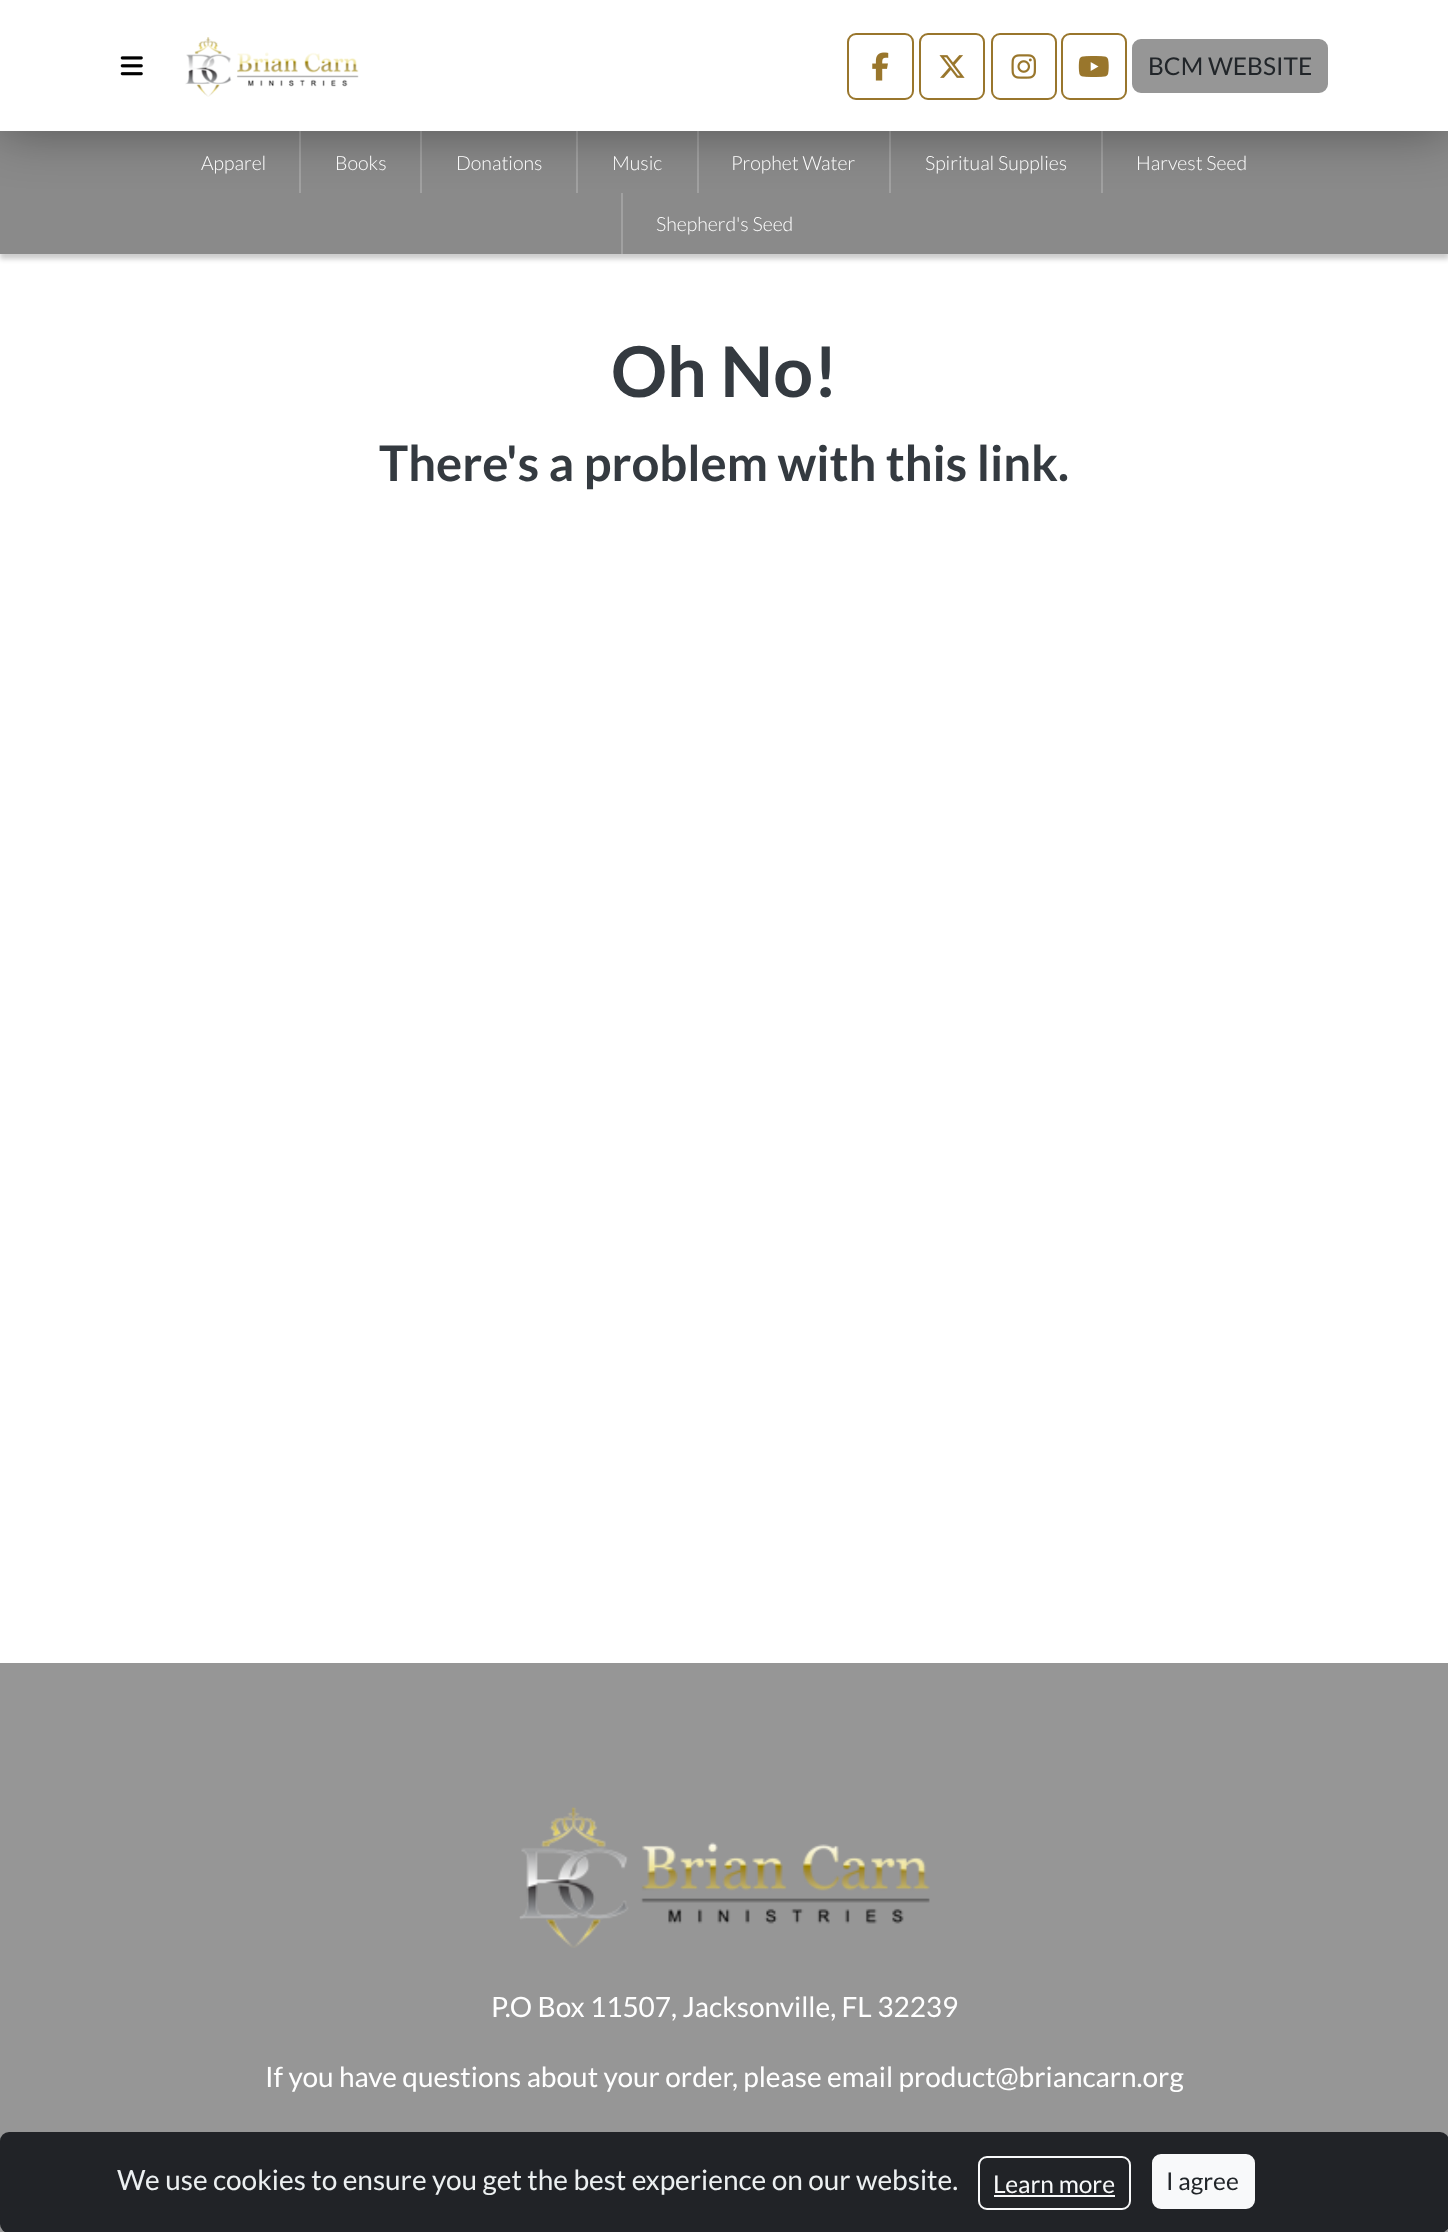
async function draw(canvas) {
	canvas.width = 1448;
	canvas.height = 2232;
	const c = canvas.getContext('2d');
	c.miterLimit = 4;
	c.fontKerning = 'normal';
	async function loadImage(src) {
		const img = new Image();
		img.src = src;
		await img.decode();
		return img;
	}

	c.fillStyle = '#fff';
	c.fillRect(0, 0, 1448, 2232);
	c.fillStyle = '#00000033';
	c.filter = 'blur(2.5px)';
	c.beginPath();
	c.rect(0, 137, 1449, 122);
	c.fill();
	c.filter = 'none';
	for (const [x, y, w, h, color] of [
		[0, 131, 1448, 123, '#8a8a8a'],
		[299, 131, 2, 62, '#a1a1a1'],
		[420, 131, 2, 62, '#a1a1a1'],
		[576, 131, 2, 62, '#a1a1a1'],
		[697, 131, 2, 62, '#a1a1a1'],
		[889, 131, 2, 62, '#a1a1a1'],
		[1101, 131, 2, 62, '#a1a1a1'],
		[621, 193, 2, 61, '#a1a1a1'],
	]) {
		c.fillStyle = color;
		c.fillRect(x, y, w, h);
	}
	c.fillStyle = '#00000066';
	c.filter = 'blur(26px)';
	c.beginPath();
	c.rect(0, 0, 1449, 131);
	c.fill();
	c.filter = 'none';
	c.fillStyle = '#fff';
	c.fillRect(0, 0, 1448, 131);
	c.drawImage(await loadImage('img1.png'), 120, 56, 23, 20);
	c.drawImage(await loadImage('img2.png'), 185, 37, 174, 60);
	c.beginPath();
	c.roundRect(848, 34, 65, 65, 8);
	c.strokeStyle = '#99762c';
	c.lineWidth = 2;
	c.stroke();
	c.drawImage(await loadImage('img3.png'), 872, 52, 17, 29);
	c.beginPath();
	c.roundRect(920, 34, 64, 65, 8);
	c.stroke();
	c.drawImage(await loadImage('img4.png'), 939, 55, 26, 23);
	c.beginPath();
	c.roundRect(992, 34, 64, 65, 8);
	c.stroke();
	c.drawImage(await loadImage('img5.png'), 1011, 54, 25, 25);
	c.beginPath();
	c.roundRect(1062, 34, 64, 65, 8);
	c.stroke();
	c.drawImage(await loadImage('img6.png'), 1078, 56, 31, 21);
	c.fillStyle = '#969696';
	c.beginPath();
	c.roundRect(1133, 40, 194, 52, 8);
	c.fill();
	c.strokeStyle = '#969696';
	c.stroke();
	c.font = '24.5px Lato';
	c.fillStyle = '#212529';
	c.fillText('BCM WEBSITE', 1148, 75);
	c.font = '300 19.5px Lato';
	c.fillStyle = '#fff';
	for (const [text, x, y] of [
		['Apparel', 201, 170],
		['Books', 335, 170],
		['Donations', 456, 170],
		['Music', 612, 170],
		['Prophet Water', 731, 170],
		['Spiritual Supplies', 925, 170],
		['Harvest Seed', 1136, 170],
		['Shepherd\'s Seed', 656, 231],
	]) {
		c.fillText(text, x, y);
	}
	c.font = 'bold 70px Lato';
	c.fillStyle = '#343a40';
	c.fillText('Oh No!', 611, 397);
	c.font = 'bold 49px Lato';
	c.fillText('There\'s a problem with this link.', 379, 481);
	c.fillStyle = '#969696';
	c.fillRect(0, 1663, 1448, 569);
	c.drawImage(await loadImage('img7.png'), 519, 1807, 411, 141);
	c.font = '28px Lato';
	c.fillStyle = '#fff';
	c.fillText('P.O Box 11507, Jacksonville, FL 32239', 491, 2017);
	c.fillText('If you have questions about your order, please email product@briancarn.org', 265, 2087);
	c.fillStyle = '#212327';
	c.beginPath();
	c.roundRect(0, 2132, 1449, 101, 9);
	c.fill();
	c.fillStyle = '#ecf0f1';
	c.fillText('We use cookies to ensure you get the best experience on our website.', 117, 2190);
	c.beginPath();
	c.roundRect(979, 2157, 151, 52, 8);
	c.strokeStyle = '#f8f9fa';
	c.stroke();
	c.font = '24.5px Lato';
	c.fillStyle = '#f8f9fa';
	c.fillText('Learn more', 993, 2193);
	c.fillRect(994, 2195, 121, 2);
	c.beginPath();
	c.roundRect(1153, 2155, 101, 53, 8);
	c.fill();
	c.stroke();
	c.fillStyle = '#212529';
	c.fillText('I agree', 1166, 2190);
}

draw(document.querySelector('canvas'));
